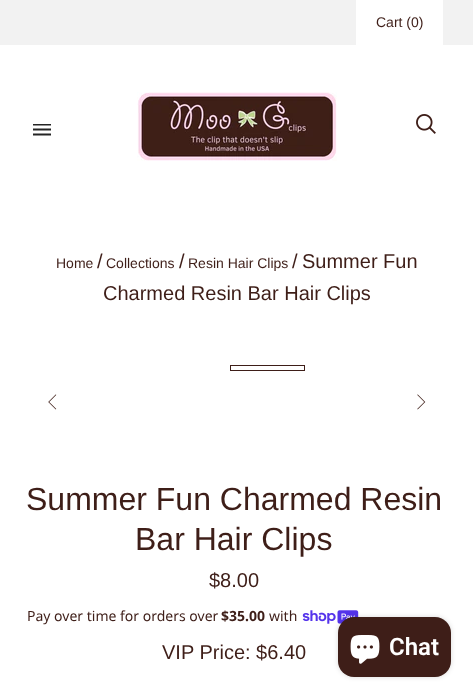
async function draw(canvas) {
	canvas.width = 473;
	canvas.height = 698;
	const c = canvas.getContext('2d');
	c.miterLimit = 4;
	c.fontKerning = 'normal';
	async function loadImage(src) {
		const img = new Image();
		img.src = src;
		await img.decode();
		return img;
	}

	c.fillStyle = '#fff';
	c.fillRect(0, 0, 473, 698);
	c.fillStyle = '#f2f2f2';
	c.fillRect(0, 0, 473, 45);
	c.fillStyle = '#fff';
	c.fillRect(356, 0, 87, 45);
	c.font = '14px Liberation Sans';
	c.fillStyle = '#3e1e18';
	c.fillText('Cart (0)', 376, 27);
	c.drawImage(await loadImage('img1.png'), 33, 124, 18, 12);
	c.drawImage(await loadImage('img2.png'), 137, 92, 200, 69);
	c.drawImage(await loadImage('img3.png'), 416, 114, 20, 20);
	c.fillText('Home', 56, 268);
	c.font = '20px Liberation Sans';
	c.fillText('/', 97, 268);
	c.font = '14px Liberation Sans';
	c.fillText('Collections', 106, 268);
	c.font = '20px Liberation Sans';
	c.fillText('/', 179, 268);
	c.font = '14px Liberation Sans';
	c.fillText('Resin Hair Clips', 188, 268);
	c.font = '20px Liberation Sans';
	for (const [text, x, y] of [
		['/', 292, 268],
		['Summer Fun', 302, 268],
		['Charmed Resin Bar Hair Clips', 103, 300],
	]) {
		c.fillText(text, x, y);
	}
	c.strokeStyle = '#3e1e18';
	c.strokeRect(230.5, 365.5, 74, 5);
	c.drawImage(await loadImage('img4.png'), 48, 394, 9, 16);
	c.drawImage(await loadImage('img5.png'), 417, 394, 9, 16);
	c.font = '32px Liberation Sans';
	c.fillText('Summer Fun Charmed Resin', 26, 510);
	c.fillText('Bar Hair Clips', 135, 550);
	c.font = '20px Liberation Sans';
	c.fillText('$8.00', 209, 587);
	c.font = '14px Noto Sans';
	c.fillText('Pay over time for orders over', 27, 621);
	c.font = 'bold 14px Noto Sans';
	c.fillText('$35.00', 221, 621);
	c.font = '14px Noto Sans';
	c.fillText('with', 269, 621);
	c.drawImage(await loadImage('img6.png'), 302, 610, 57, 14);
	c.font = '20px Liberation Sans';
	c.fillText('VIP Price: $6.40', 162, 659);
	c.fillStyle = '#00000026';
	c.filter = 'blur(2.5px)';
	c.beginPath();
	c.roundRect(338, 617, 113, 60, 16);
	c.fill();
	c.filter = 'none';
	c.fillStyle = '#3e1e18';
	c.beginPath();
	c.roundRect(338, 617, 113, 60, 16);
	c.fill();
	c.drawImage(await loadImage('img7.png'), 350, 635, 30, 29);
	c.font = '600 24px Roboto';
	c.fillStyle = '#fff';
	c.fillText('Chat', 389, 655);
}

draw(document.querySelector('canvas'));
